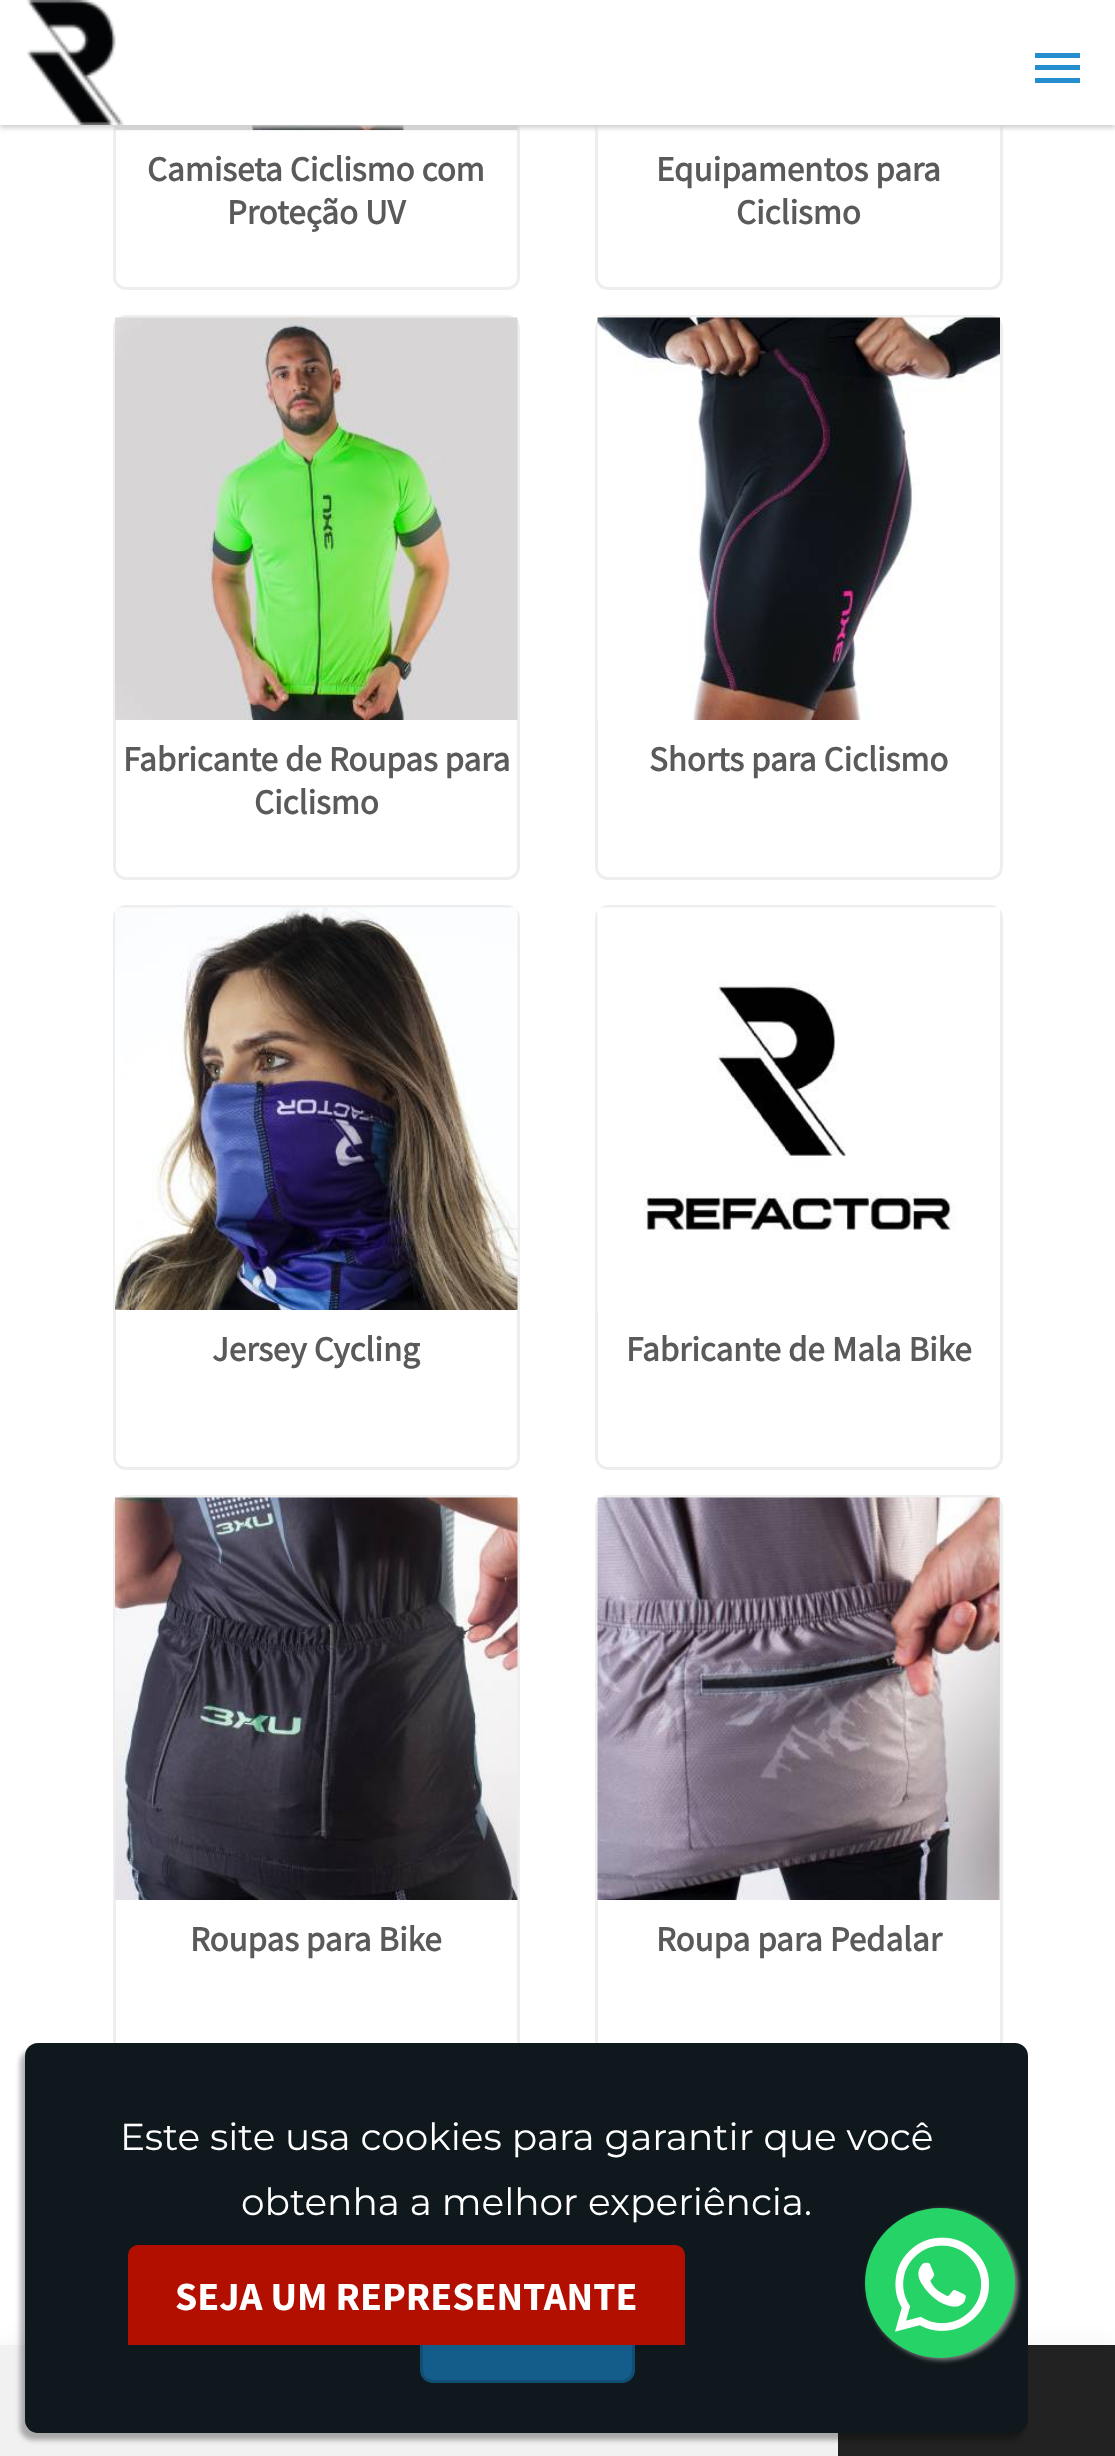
async function draw(canvas) {
	canvas.width = 1115;
	canvas.height = 2456;
	const c = canvas.getContext('2d');
	c.miterLimit = 4;
	c.fontKerning = 'normal';
	async function loadImage(src) {
		const img = new Image();
		img.src = src;
		await img.decode();
		return img;
	}

	c.fillStyle = '#fff';
	c.fillRect(0, 0, 1115, 2456);
	c.beginPath();
	c.roundRect(114.5, -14.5, 404, 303, 11.5);
	c.strokeStyle = '#eee';
	c.lineWidth = 3;
	c.stroke();
	c.drawImage(await loadImage('img2.png'), 115, 125, 403, 5);
	c.beginPath();
	c.roundRect(596.5, -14.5, 405, 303, 11.5);
	c.stroke();
	c.drawImage(await loadImage('img3.png'), 597, 125, 253, 5);
	c.fillStyle = '#d0d0d0';
	c.filter = 'blur(2.5px)';
	c.beginPath();
	c.rect(0, 3, 1115, 125);
	c.fill();
	c.filter = 'none';
	c.fillStyle = '#fff';
	c.fillRect(0, 0, 1115, 125);
	c.drawImage(await loadImage('img1.png'), 27, 0, 97, 125);
	for (const [x, y, w, h, color] of [
		[1035, 53, 45, 5, '#248ece'],
		[1035, 65, 45, 5, '#248ece'],
		[1035, 78, 45, 5, '#248ece'],
	]) {
		c.fillStyle = color;
		c.fillRect(x, y, w, h);
	}
	c.font = 'bold 35px Source Sans Pro';
	c.fillStyle = '#5a5a5a';
	for (const [text, x, y] of [
		['Camiseta Ciclismo com', 147, 181],
		['Proteção UV', 227, 224],
		['Equipamentos para', 656, 181],
		['Ciclismo', 736, 224],
	]) {
		c.fillText(text, x, y);
	}
	c.beginPath();
	c.roundRect(114.5, 316.5, 404, 562, 11.5);
	c.stroke();
	c.drawImage(await loadImage('img4.png'), 115, 317, 403, 403);
	c.fillText('Fabricante de Roupas para', 123, 771);
	c.fillText('Ciclismo', 254, 814);
	c.beginPath();
	c.roundRect(596.5, 316.5, 405, 562, 11.5);
	c.stroke();
	c.drawImage(await loadImage('img5.png'), 597, 317, 403, 403);
	c.fillText('Shorts para Ciclismo', 649, 771);
	c.beginPath();
	c.roundRect(114.5, 906.5, 404, 562, 11.5);
	c.stroke();
	c.drawImage(await loadImage('img6.png'), 115, 907, 403, 403);
	c.fillText('Jersey Cycling', 212, 1361);
	c.beginPath();
	c.roundRect(596.5, 906.5, 405, 562, 11.5);
	c.stroke();
	c.drawImage(await loadImage('img7.png'), 597, 907, 403, 403);
	c.fillText('Fabricante de Mala Bike', 626, 1361);
	c.beginPath();
	c.roundRect(114.5, 1496.5, 404, 562, 11.5);
	c.stroke();
	c.drawImage(await loadImage('img8.png'), 115, 1497, 403, 403);
	c.fillText('Roupas para Bike', 190, 1951);
	c.beginPath();
	c.roundRect(596.5, 1496.5, 405, 562, 11.5);
	c.stroke();
	c.drawImage(await loadImage('img9.png'), 597, 1497, 403, 403);
	c.fillText('Roupa para Pedalar', 656, 1951);
	c.fillStyle = '#0000000d';
	c.filter = 'blur(12.5px)';
	c.beginPath();
	c.rect(0, 2345, 1115, 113);
	c.fill();
	c.filter = 'none';
	c.fillStyle = '#f1f1f1';
	c.fillRect(0, 2345, 838, 111);
	c.fillStyle = '#222';
	c.fillRect(838, 2345, 277, 111);
	c.fillStyle = '#0000004d';
	c.filter = 'blur(2.5px)';
	c.beginPath();
	c.roundRect(20, 2050, 1003, 390, 13);
	c.fill();
	c.filter = 'none';
	c.fillStyle = '#0f181c';
	c.beginPath();
	c.roundRect(25, 2043, 1003, 390, 13);
	c.fill();
	c.font = '37.5px Montserrat';
	c.fillStyle = '#fff';
	c.fillText('Este site usa cookies para garantir que você', 120, 2150);
	c.fillText('obtenha a melhor experiência.', 241, 2215);
	c.fillStyle = '#145d8a';
	c.beginPath();
	c.roundRect(421.5, 2299.5, 212, 82, 11.5);
	c.fill();
	c.strokeStyle = '#114e73';
	c.stroke();
	c.fillStyle = '#b30f00';
	c.beginPath();
	c.roundRect(128, 2245, 557, 100, [10, 10, 0, 0]);
	c.fill();
	c.font = 'bold 40px "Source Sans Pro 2"';
	c.fillStyle = '#fff';
	c.fillText('SEJA UM REPRESENTANTE', 175, 2310);
	c.fillStyle = '#888';
	c.filter = 'blur(2.5px)';
	c.beginPath();
	c.roundRect(868, 2210, 150, 150, 75);
	c.fill();
	c.filter = 'none';
	c.fillStyle = '#25d366';
	c.beginPath();
	c.arc(940, 2283, 75, 0, 2 * Math.PI);
	c.fill();
	c.drawImage(await loadImage('img10.png'), 895, 2237, 95, 95);
}

draw(document.querySelector('canvas'));
